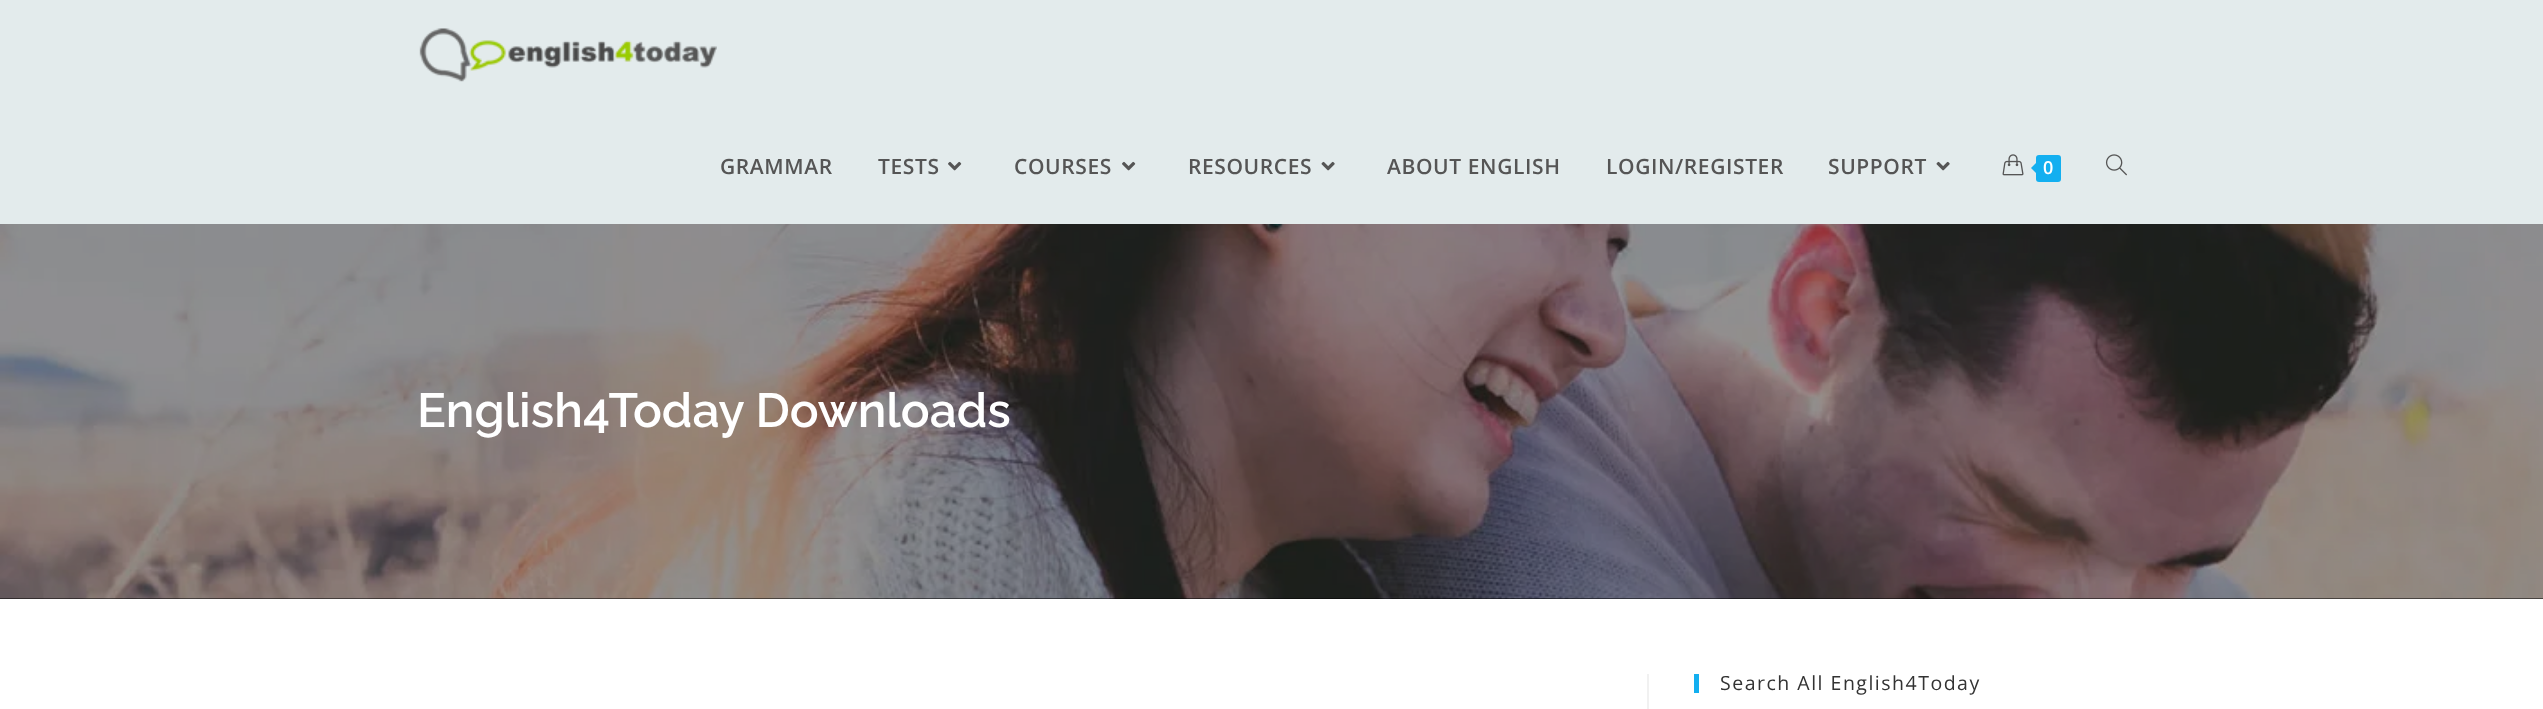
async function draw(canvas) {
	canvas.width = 2543;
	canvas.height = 709;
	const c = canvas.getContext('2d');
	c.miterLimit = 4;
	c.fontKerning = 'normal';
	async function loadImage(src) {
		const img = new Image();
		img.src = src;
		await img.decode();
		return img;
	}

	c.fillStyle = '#fff';
	c.fillRect(0, 0, 2543, 709);
	c.fillStyle = '#e3ebec';
	c.fillRect(0, 0, 2543, 224);
	c.drawImage(await loadImage('img1.png'), 419, 28, 298, 54);
	c.letterSpacing = '0.6px';
	c.font = '600 21px Open Sans';
	c.fillStyle = '#555';
	c.fillText('GRAMMAR', 720, 174);
	c.fillText('TESTS', 878, 174);
	c.drawImage(await loadImage('img2.png'), 948, 161, 14, 10);
	c.fillText('COURSES', 1014, 174);
	c.drawImage(await loadImage('img2.png'), 1122, 161, 14, 10);
	c.fillText('RESOURCES', 1188, 174);
	c.drawImage(await loadImage('img3.png'), 1321, 161, 14, 10);
	for (const [text, x, y] of [
		['ABOUT ENGLISH', 1387, 174],
		['LOGIN/REGISTER', 1606, 174],
		['SUPPORT', 1828, 174],
	]) {
		c.fillText(text, x, y);
	}
	c.drawImage(await loadImage('img3.png'), 1936, 161, 14, 10);
	c.drawImage(await loadImage('img4.png'), 2002, 154, 22, 22);
	c.fillStyle = '#13aff0';
	c.beginPath();
	c.roundRect(2036, 155, 25, 27, 3);
	c.fill();
	c.beginPath();
	c.moveTo(2038.5, 160.5);
	c.lineTo(2038.5, 175.5);
	c.lineTo(2031, 168);
	c.closePath();
	c.fill();
	c.letterSpacing = '0px';
	c.font = '600 18px Open Sans';
	c.fillStyle = '#fff';
	c.fillText('0', 2043, 174);
	c.drawImage(await loadImage('img5.png'), 2105, 154, 22, 22);
	c.fillStyle = '#000';
	c.fillRect(0, 598, 2543, 1);
	c.drawImage(await loadImage('img6.png'), 0, 224, 2543, 375);
	c.font = '600 48px Raleway';
	c.fillStyle = '#fff';
	c.fillText('English4Today Downloads', 417, 427);
	c.fillStyle = '#f1f1f1';
	c.fillRect(1647, 674, 2, 35);
	c.fillStyle = '#13aff0';
	c.fillRect(1694, 674, 5, 19);
	c.letterSpacing = '1.5px';
	c.font = '19.5px Open Sans';
	c.fillStyle = '#333';
	c.fillText('Search All English4Today', 1720, 690);
}

draw(document.querySelector('canvas'));
